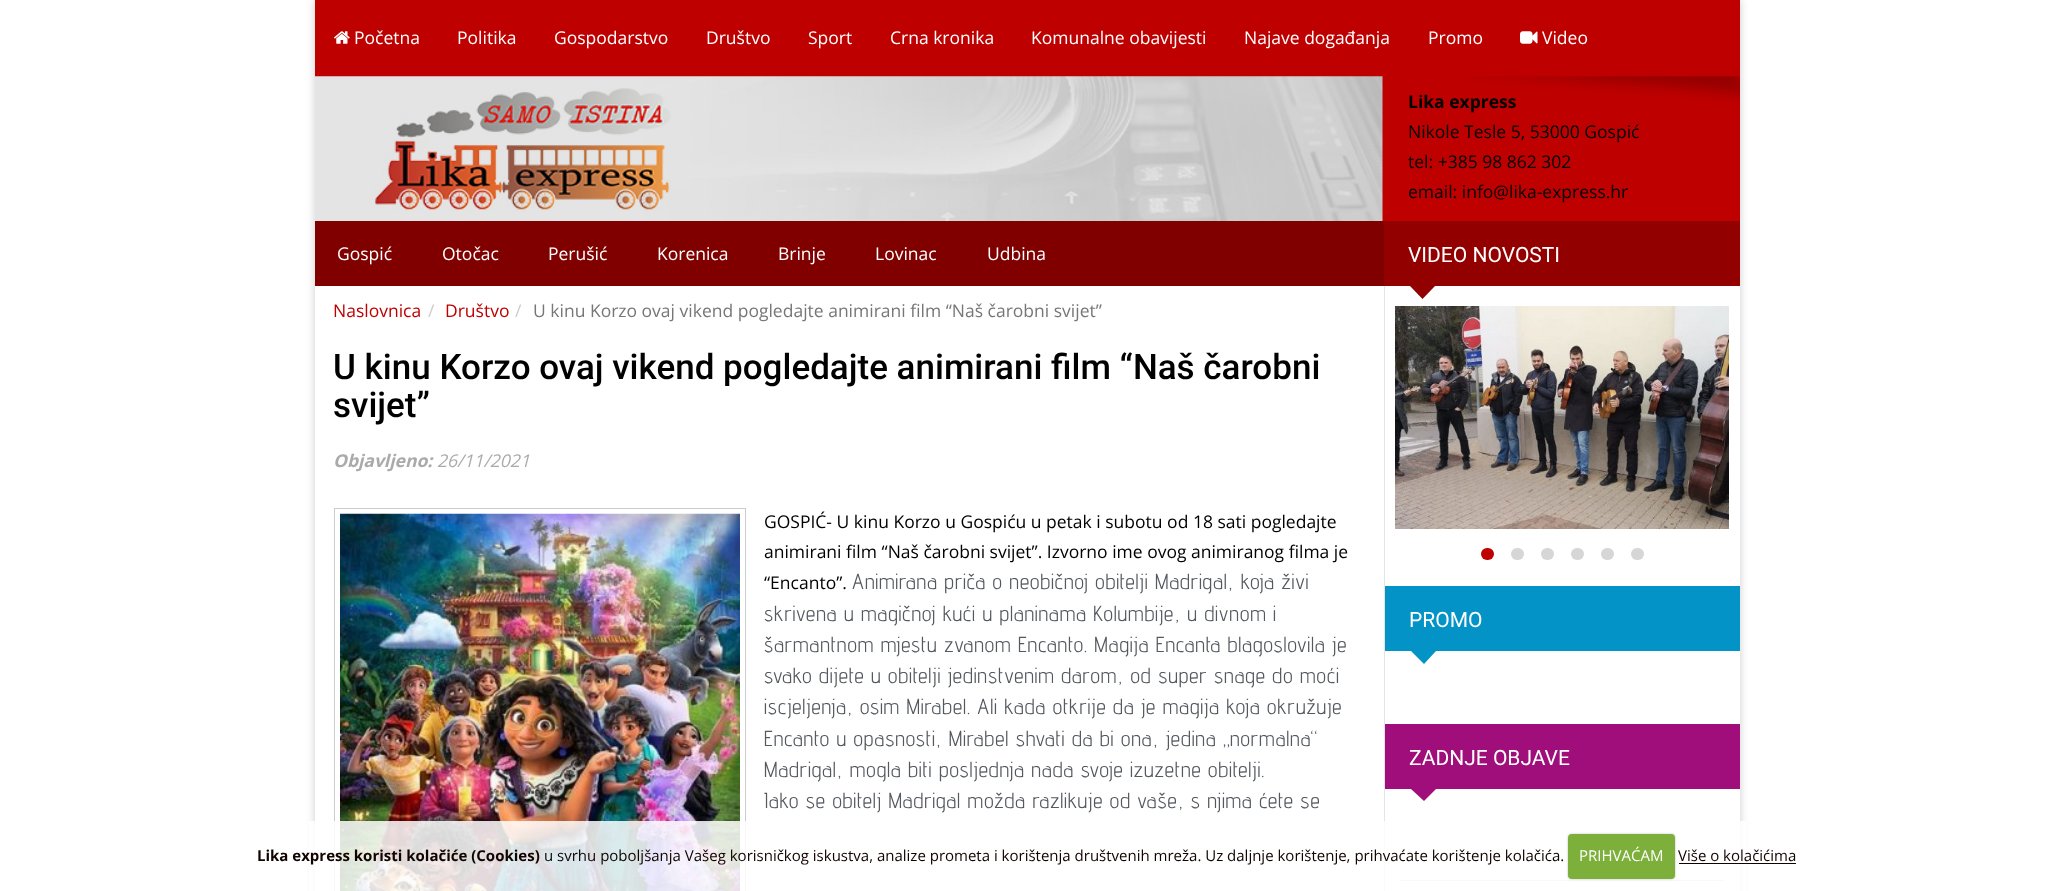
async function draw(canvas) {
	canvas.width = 2053;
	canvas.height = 891;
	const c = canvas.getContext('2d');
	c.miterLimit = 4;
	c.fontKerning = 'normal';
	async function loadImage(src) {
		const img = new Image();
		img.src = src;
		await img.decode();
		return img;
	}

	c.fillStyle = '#fff';
	c.fillRect(0, 0, 2053, 891);
	c.save();
	c.beginPath();
	c.moveTo(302, 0);
	c.lineTo(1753, 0);
	c.lineTo(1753, 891);
	c.lineTo(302, 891);
	c.closePath();
	c.moveTo(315, 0);
	c.lineTo(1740, 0);
	c.lineTo(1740, 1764);
	c.lineTo(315, 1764);
	c.closePath();
	c.clip('evenodd');
	c.fillStyle = '#00000033';
	c.filter = 'blur(4px)';
	c.beginPath();
	c.rect(315, 0, 1425, 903);
	c.fill();
	c.filter = 'none';
	c.restore();
	c.fillStyle = '#bf0000';
	c.fillRect(315, 0, 1425, 221);
	c.drawImage(await loadImage('img1.png'), 334, 31, 16, 13);
	c.font = '17.5px Open Sans';
	c.fillStyle = '#fff';
	for (const [text, x, y] of [
		['Početna', 354, 44],
		['Politika', 457, 44],
		['Gospodarstvo', 554, 44],
		['Društvo', 706, 44],
		['Sport', 808, 44],
		['Crna kronika', 890, 44],
		['Komunalne obavijesti', 1031, 44],
		['Najave događanja', 1244, 44],
		['Promo', 1428, 44],
	]) {
		c.fillText(text, x, y);
	}
	c.drawImage(await loadImage('img2.png'), 1520, 31, 18, 13);
	c.fillText('Video', 1542, 44);
	c.drawImage(await loadImage('img3.png'), 315, 76, 1068, 145);
	c.drawImage(await loadImage('img4.png'), 1464, 76, 276, 26);
	c.font = 'bold 17.5px Open Sans';
	c.fillStyle = '#000';
	c.fillText('Lika express', 1408, 108);
	c.font = '17.5px Open Sans';
	for (const [text, x, y] of [
		['Nikole Tesle 5, 53000 Gospić', 1408, 138],
		['tel: +385 98 862 302', 1408, 168],
		['email: info@lika-express.hr', 1408, 198],
	]) {
		c.fillText(text, x, y);
	}
	c.fillStyle = '#920000';
	c.fillRect(1384, 221, 356, 65);
	c.fillStyle = '#800000';
	c.fillRect(315, 221, 1069, 65);
	c.fillStyle = '#fff';
	for (const [text, x, y] of [
		['Gospić', 337, 260],
		['Otočac', 442, 260],
		['Perušić', 548, 260],
		['Korenica', 657, 260],
		['Brinje', 778, 260],
		['Lovinac', 875, 260],
		['Udbina', 987, 260],
	]) {
		c.fillText(text, x, y);
	}
	c.font = '21px Roboto';
	c.fillText('VIDEO NOVOSTI', 1408, 262);
	c.fillStyle = '#920000';
	c.beginPath();
	c.moveTo(1410, 286);
	c.lineTo(1435, 286);
	c.lineTo(1422.5, 299);
	c.closePath();
	c.fill();
	c.font = '17.5px Open Sans';
	c.fillStyle = '#bf0000';
	c.fillText('Naslovnica', 333, 317);
	c.fillStyle = '#ccc';
	c.fillText('/', 428, 317);
	c.fillStyle = '#bf0000';
	c.fillText('Društvo', 445, 317);
	c.fillStyle = '#ccc';
	c.fillText('/', 515, 317);
	c.fillStyle = '#777';
	c.fillText('U kinu Korzo ovaj vikend pogledajte animirani film “Naš čarobni svijet”', 533, 317);
	c.font = '500 35px Roboto';
	c.fillStyle = '#000';
	c.fillText('U kinu Korzo ovaj vikend pogledajte animirani film “Naš čarobni', 333, 379);
	c.fillText('svijet”', 333, 417);
	c.font = 'italic bold 17.5px Open Sans';
	c.fillStyle = '#aaa';
	c.fillText('Objavljeno:', 333, 467);
	c.font = 'italic 17.5px Open Sans';
	c.fillText('26/11/2021', 437, 467);
	c.strokeStyle = '#ccc';
	c.strokeRect(334.5, 508.5, 411, 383);
	c.drawImage(await loadImage('img5.png'), 340, 513, 400, 378);
	c.font = '17.5px Open Sans';
	c.fillStyle = '#000';
	for (const [text, x, y] of [
		['GOSPIĆ- U kinu Korzo u Gospiću u petak i subotu od 18 sati pogledajte', 764, 528],
		['animirani film “Naš čarobni svijet”. Izvorno ime ovog animiranog filma je', 764, 558],
		['“Encanto”.', 764, 589],
	]) {
		c.fillText(text, x, y);
	}
	c.letterSpacing = '0.67px';
	c.font = '21.7px Advent Pro';
	c.fillStyle = '#54595f';
	for (const [text, x, y] of [
		['Animirana priča o neobičnoj obitelji Madrigal, koja živi', 852, 589],
		['skrivena u magičnoj kući u planinama Kolumbije, u divnom i', 764, 621],
		['šarmantnom mjestu zvanom Encanto. Magija Encanta blagoslovila je', 764, 652],
		['svako dijete u obitelji jedinstvenim darom, od super snage do moći', 764, 683],
		['iscjeljenja, osim Mirabel. Ali kada otkrije da je magija koja okružuje', 764, 714],
		['Encanto u opasnosti, Mirabel shvati da bi ona, jedina „normalna“', 764, 746],
		['Madrigal, mogla biti posljednja nada svoje izuzetne obitelji.', 764, 777],
		['Iako se obitelj Madrigal možda razlikuje od vaše, s njima ćete se', 764, 808],
	]) {
		c.fillText(text, x, y);
	}
	c.fillStyle = '#e4e4e4';
	c.fillRect(1384, 286, 1, 605);
	c.drawImage(await loadImage('img6.png'), 1395, 306, 334, 223);
	c.fillStyle = '#bf0000';
	c.beginPath();
	c.roundRect(1481, 548, 13, 12, 6);
	c.fill();
	c.fillStyle = '#d6d6d6';
	c.beginPath();
	c.roundRect(1511, 548, 13, 12, 6);
	c.fill();
	c.beginPath();
	c.roundRect(1541, 548, 13, 12, 6);
	c.fill();
	c.beginPath();
	c.roundRect(1571, 548, 13, 12, 6);
	c.fill();
	c.beginPath();
	c.roundRect(1601, 548, 13, 12, 6);
	c.fill();
	c.beginPath();
	c.roundRect(1631, 548, 13, 12, 6);
	c.fill();
	c.fillStyle = '#0393c6';
	c.fillRect(1385, 586, 355, 65);
	c.letterSpacing = '0px';
	c.font = '21px Roboto';
	c.fillStyle = '#fff';
	c.fillText('PROMO', 1409, 627);
	c.fillStyle = '#0393c6';
	c.beginPath();
	c.moveTo(1411, 651);
	c.lineTo(1436, 651);
	c.lineTo(1424, 664);
	c.closePath();
	c.fill();
	c.fillStyle = '#9f0e7b';
	c.fillRect(1385, 724, 355, 65);
	c.fillStyle = '#fff';
	c.fillText('ZADNJE OBJAVE', 1409, 765);
	c.fillStyle = '#9f0e7b';
	c.beginPath();
	c.moveTo(1411, 789);
	c.lineTo(1436, 789);
	c.lineTo(1424, 801);
	c.closePath();
	c.fill();
	c.fillStyle = '#d2d2d2';
	c.fillRect(1401, 880, 322, 1);
	c.fillStyle = '#ffffffd9';
	c.fillRect(309, 821, 1437, 70);
	c.font = 'bold 15px Open Sans';
	c.fillStyle = '#110300';
	c.fillText('Lika express koristi kolačiće (Cookies)', 257, 861);
	c.font = '15px Open Sans';
	c.fillText('u svrhu poboljšanja Vašeg korisničkog iskustva, analize prometa i korištenja društvenih mreža. Uz daljnje korištenje, prihvaćate korištenje kolačića.', 544, 861);
	c.fillStyle = '#00000040';
	c.filter = 'blur(1px)';
	c.beginPath();
	c.roundRect(1568, 834, 107, 45, 4);
	c.fill();
	c.filter = 'none';
	c.fillStyle = '#7daf3b';
	c.beginPath();
	c.roundRect(1568, 834, 107, 45, 4);
	c.fill();
	c.fillStyle = '#fff';
	c.fillText('PRIHVAĆAM', 1579, 861);
	c.fillStyle = '#110300';
	c.fillText('Više o kolačićima', 1678, 861);
	c.fillRect(1679, 863, 117, 1);
}

draw(document.querySelector('canvas'));
